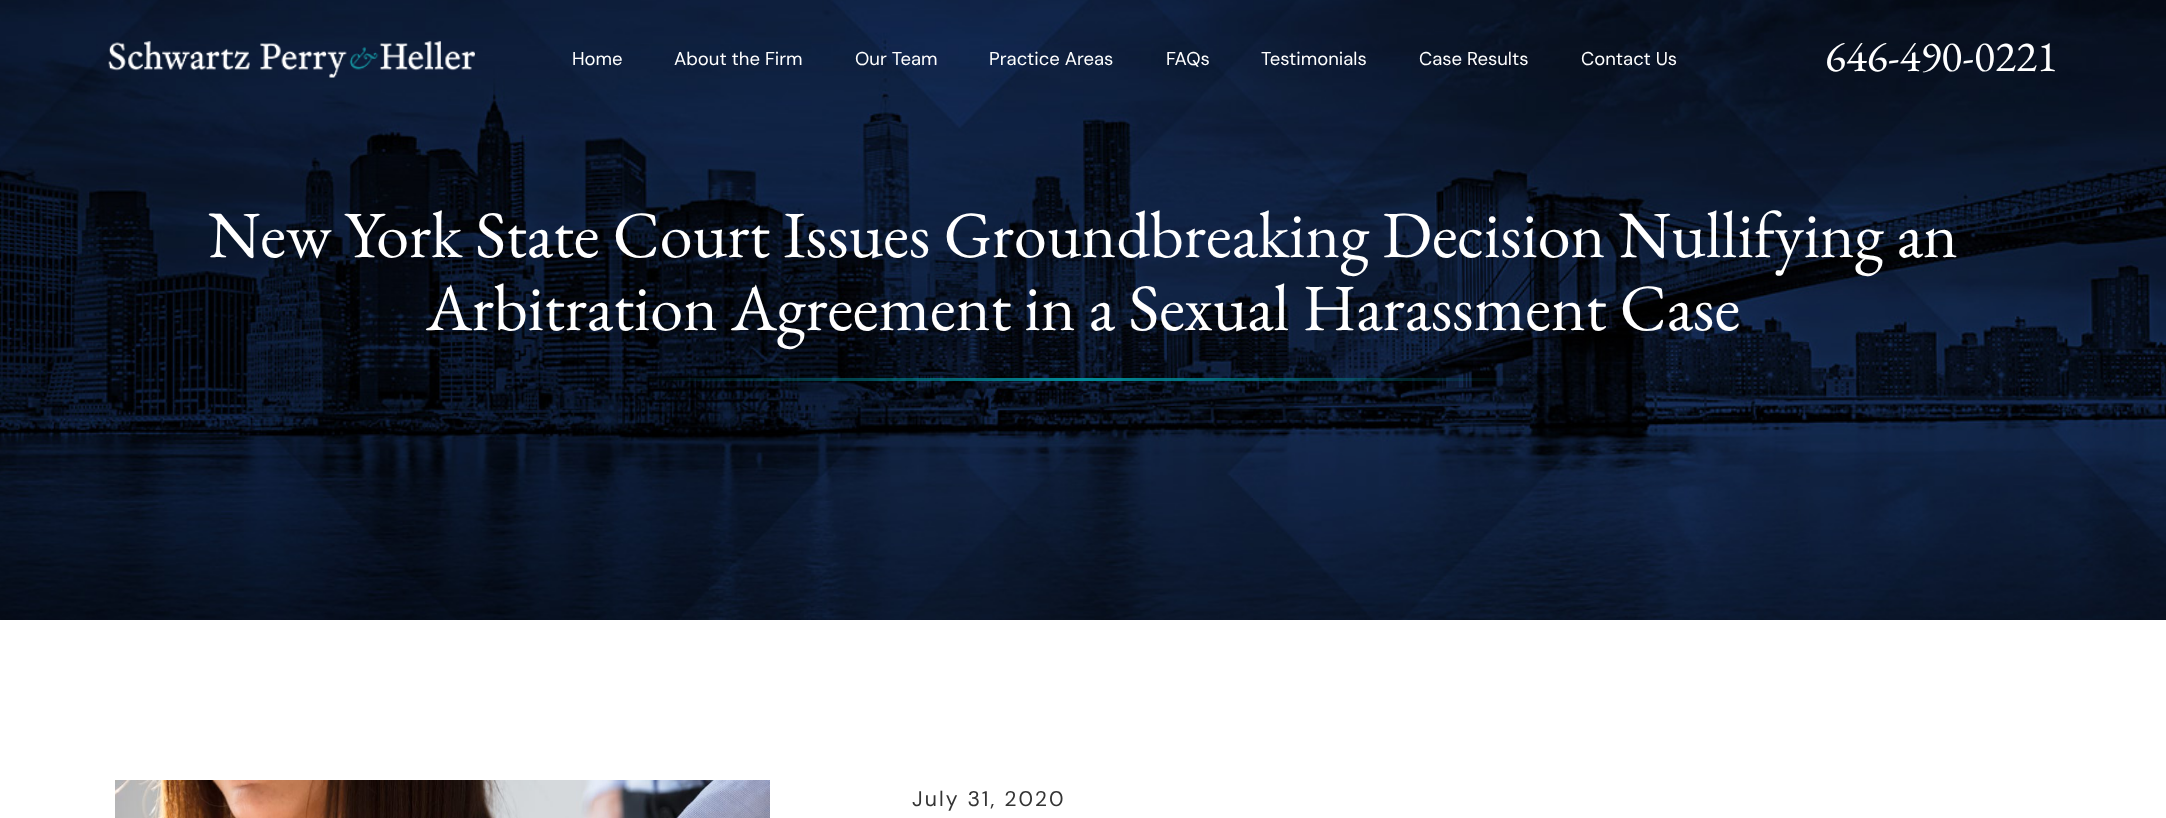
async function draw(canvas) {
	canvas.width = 2166;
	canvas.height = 818;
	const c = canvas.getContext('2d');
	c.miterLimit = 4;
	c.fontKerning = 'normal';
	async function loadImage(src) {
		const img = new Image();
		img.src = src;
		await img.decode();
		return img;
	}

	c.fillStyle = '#fff';
	c.fillRect(0, 0, 2166, 818);
	c.drawImage(await loadImage('img2.png'), 0, 0, 2166, 620);
	c.drawImage(await loadImage('img1.png'), 108, 41, 367, 37);
	c.font = '18.5px DM Sans';
	for (const [text, x, y] of [
		['Home', 572, 65],
		['About the Firm', 674, 65],
		['Our Team', 855, 65],
		['Practice Areas', 989, 65],
		['FAQs', 1166, 65],
		['Testimonials', 1261, 65],
		['Case Results', 1419, 65],
		['Contact Us', 1581, 65],
	]) {
		c.fillText(text, x, y);
	}
	c.font = '43.5px EB Garamond';
	c.fillText('646-490-0221', 1825, 71);
	c.font = '66.1px EB Garamond';
	c.fillText('New York State Court Issues Groundbreaking Decision Nullifying an', 208, 257);
	c.fillText('Arbitration Agreement in a Sexual Harassment Case', 426, 330);
	c.drawImage(await loadImage('img3.png'), 115, 780, 655, 38);
	c.letterSpacing = '2.1px';
	c.font = '21.25px DM Sans';
	c.fillStyle = '#343434';
	c.fillText('July 31, 2020', 912, 806);
}

draw(document.querySelector('canvas'));
